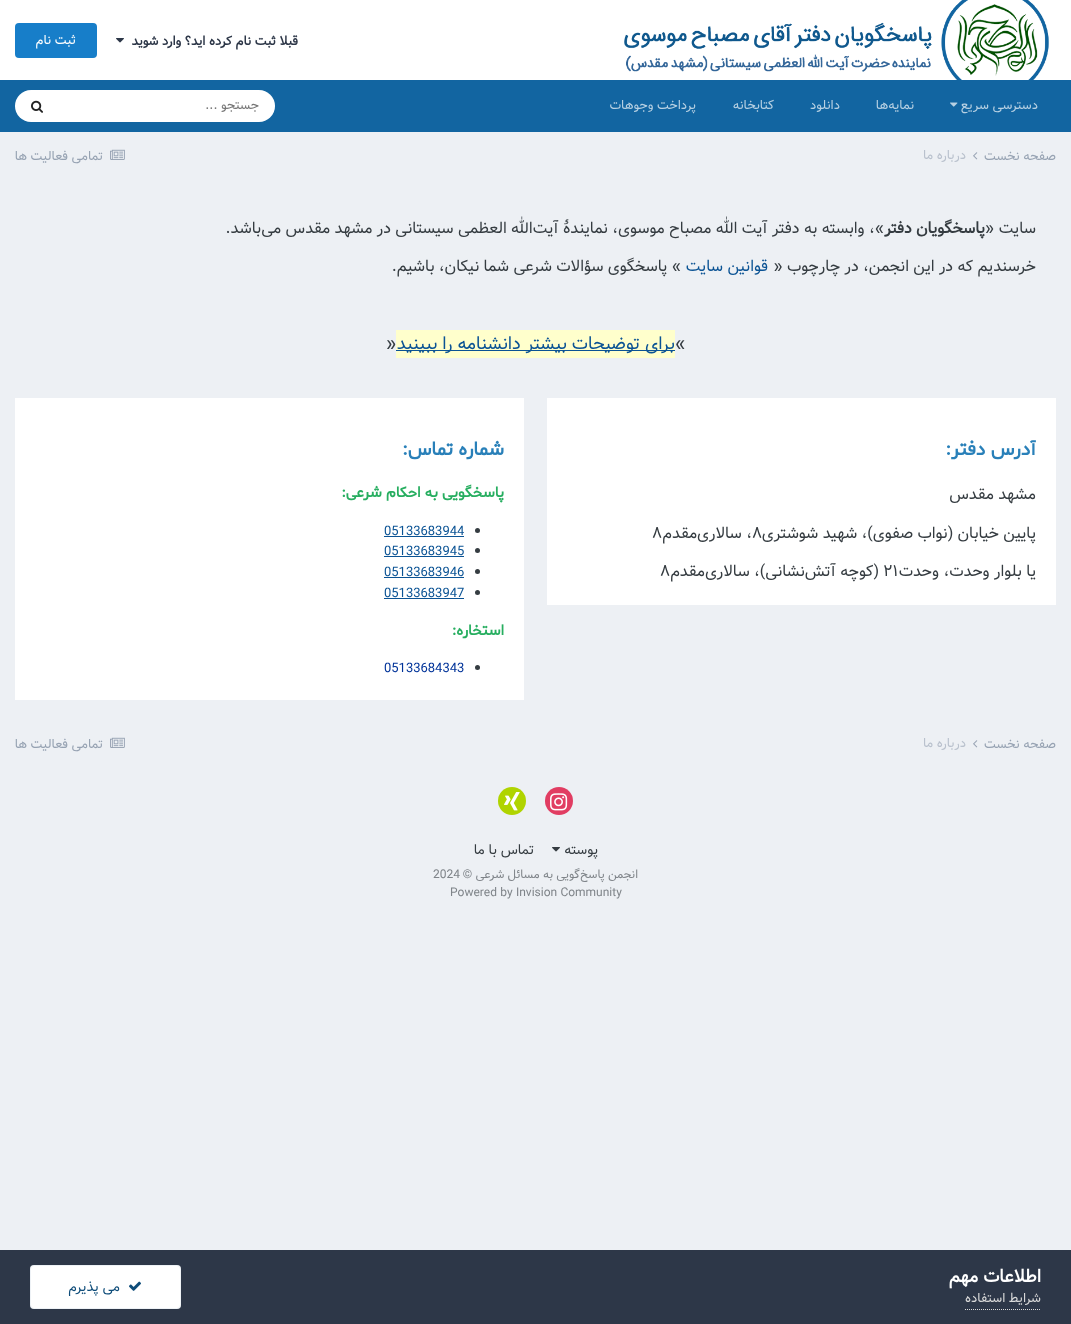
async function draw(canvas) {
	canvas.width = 1071;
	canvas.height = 1324;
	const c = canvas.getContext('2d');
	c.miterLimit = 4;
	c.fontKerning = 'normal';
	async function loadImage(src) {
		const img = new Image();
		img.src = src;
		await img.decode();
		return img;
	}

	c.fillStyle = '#edf0f4';
	c.fillRect(0, 0, 1071, 1324);
	c.fillStyle = '#fff';
	c.fillRect(0, 0, 1071, 80);
	c.drawImage(await loadImage('img1.png'), 624, 0, 425, 80);
	c.direction = 'rtl';
	c.font = 'bold 13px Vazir';
	c.fillStyle = '#2d3748';
	c.fillText('قبلا ثبت نام کرده اید؟ وارد شوید', 298, 45);
	c.drawImage(await loadImage('img2.png'), 116, 38, 8, 5);
	c.fillStyle = '#177ec9';
	c.beginPath();
	c.roundRect(15, 23, 82, 35, 4);
	c.fill();
	c.font = '13px Vazir';
	c.fillStyle = '#fff';
	c.fillText('ثبت نام', 76, 44);
	c.fillStyle = '#1265a1';
	c.fillRect(0, 80, 1071, 52);
	c.fillStyle = '#b8d1e3';
	c.fillText('دسترسی سریع', 1038, 109);
	c.drawImage(await loadImage('img3.png'), 950, 102, 8, 5);
	for (const [text, x, y] of [
		['نمایه‌ها', 914, 109],
		['دانلود', 840, 109],
		['کتابخانه', 774, 109],
		['پرداخت وجوهات', 696, 109],
	]) {
		c.fillText(text, x, y);
	}
	c.fillStyle = '#fff';
	c.beginPath();
	c.roundRect(15, 90, 260, 32, 16);
	c.fill();
	c.fillStyle = '#757575';
	c.fillText('جستجو ...', 259, 109);
	c.drawImage(await loadImage('img4.png'), 31, 100, 12, 13);
	c.fillStyle = '#96a2b2';
	c.fillText('صفحه نخست', 1056, 160);
	c.drawImage(await loadImage('img5.png'), 973, 152, 5, 8);
	c.fillStyle = '#b9c1cd';
	c.fillText('درباره ما', 966, 159);
	c.drawImage(await loadImage('img6.png'), 110, 149, 15, 11);
	c.fillStyle = '#96a2b2';
	c.fillText('تمامی فعالیت ها', 103, 160);
	c.font = '16px Vazir';
	c.fillStyle = '#353c41';
	c.fillText('سایت «', 1036, 233);
	c.font = 'bold 16px Vazir';
	c.fillText('پاسخگویان دفتر', 985, 233);
	c.font = '16px Vazir';
	c.fillText('»، وابسته به دفتر آیت الله مصباح موسوی، نمایندۀ آیت‌الله العظمی سیستانی در مشهد مقدس می‌باشد.', 884, 233);
	c.fillText('خرسندیم که در این انجمن، در چارچوب «', 1036, 271);
	c.fillStyle = '#0b5394';
	c.fillText('قوانین سایت', 768, 271);
	c.fillStyle = '#353c41';
	c.fillText('» پاسخگوی سؤالات شرعی شما نیکان، باشیم.', 681, 271);
	c.direction = 'ltr';
	c.font = '18px Vazir';
	c.fillText('«', 675, 349);
	c.fillStyle = '#ffc';
	c.fillRect(396, 330, 279, 28);
	c.fillStyle = '#0b5394';
	c.fillRect(396, 350, 279, 1);
	c.direction = 'rtl';
	c.fillText('برای توضیحات بیشتر دانشنامه را ببینید', 675, 349);
	c.direction = 'ltr';
	c.fillStyle = '#353c41';
	c.fillText('»', 386, 349);
	c.fillStyle = '#fff';
	c.fillRect(547, 398, 509, 207);
	c.direction = 'rtl';
	c.font = 'bold 19.5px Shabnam';
	c.fillStyle = '#2980b9';
	c.fillText('آدرس دفتر:', 1036, 455);
	c.font = '16px Vazir';
	c.fillStyle = '#353c41';
	c.fillText('مشهد مقدس', 1036, 499);
	c.fillText('پایین خیابان (نواب صفوی)، شهید شوشتری', 1036, 538);
	c.direction = 'ltr';
	c.fillText('۸', 752, 538);
	c.direction = 'rtl';
	c.fillText('، سالاری‌مقدم', 752, 538);
	c.direction = 'ltr';
	c.fillText('۸', 652, 538);
	c.direction = 'rtl';
	c.fillText('یا بلوار وحدت، وحدت', 1036, 576);
	c.direction = 'ltr';
	c.fillText('۲۱', 883, 576);
	c.direction = 'rtl';
	c.fillText('(کوچه آتش‌نشانی)، سالاری‌مقدم', 879, 576);
	c.direction = 'ltr';
	c.fillText('۸', 660, 576);
	c.fillStyle = '#fff';
	c.fillRect(15, 398, 509, 302);
	c.direction = 'rtl';
	c.font = 'bold 19.5px Shabnam';
	c.fillStyle = '#2980b9';
	c.fillText('شماره تماس:', 504, 455);
	c.font = 'bold 15.25px Shabnam';
	c.fillStyle = '#27ae60';
	c.fillText('پاسخگویی به احکام شرعی:', 504, 497);
	c.fillStyle = '#353c41';
	c.beginPath();
	c.arc(477.5, 530.5, 2.5, 0, 2 * Math.PI);
	c.fill();
	c.direction = 'ltr';
	c.font = '13px Vazir';
	c.fillStyle = '#0b5394';
	c.fillText('05133683944', 384, 535);
	c.fillRect(384, 536, 80, 1);
	c.fillStyle = '#353c41';
	c.beginPath();
	c.arc(477.5, 550.5, 2.5, 0, 2 * Math.PI);
	c.fill();
	c.fillStyle = '#0b5394';
	c.fillText('05133683945', 384, 555);
	c.fillRect(384, 556, 80, 1);
	c.fillStyle = '#353c41';
	c.beginPath();
	c.arc(477.5, 571.5, 2.5, 0, 2 * Math.PI);
	c.fill();
	c.fillStyle = '#0b5394';
	c.fillText('05133683946', 384, 576);
	c.fillRect(384, 577, 80, 1);
	c.fillStyle = '#353c41';
	c.beginPath();
	c.arc(477.5, 592.5, 2.5, 0, 2 * Math.PI);
	c.fill();
	c.fillStyle = '#0b5394';
	c.fillText('05133683947', 384, 597);
	c.fillRect(384, 598, 80, 1);
	c.direction = 'rtl';
	c.font = 'bold 15.25px Shabnam';
	c.fillStyle = '#27ae60';
	c.fillText('استخاره:', 504, 635);
	c.fillStyle = '#353c41';
	c.beginPath();
	c.arc(477.5, 667.5, 2.5, 0, 2 * Math.PI);
	c.fill();
	c.direction = 'ltr';
	c.font = '13px Vazir';
	c.fillStyle = '#039';
	c.fillText('05133684343', 384, 672);
	c.direction = 'rtl';
	c.fillStyle = '#96a2b2';
	c.fillText('صفحه نخست', 1056, 748);
	c.drawImage(await loadImage('img5.png'), 973, 740, 5, 8);
	c.fillStyle = '#b9c1cd';
	c.fillText('درباره ما', 966, 747);
	c.drawImage(await loadImage('img6.png'), 110, 737, 15, 11);
	c.fillStyle = '#96a2b2';
	c.fillText('تمامی فعالیت ها', 103, 748);
	c.fillStyle = '#e13d62';
	c.beginPath();
	c.arc(559, 801, 14, 0, 2 * Math.PI);
	c.fill();
	c.drawImage(await loadImage('img7.png'), 550, 793, 18, 18);
	c.fillStyle = '#b0d400';
	c.beginPath();
	c.arc(512, 801, 14, 0, 2 * Math.PI);
	c.fill();
	c.drawImage(await loadImage('img8.png'), 504, 792, 16, 19);
	c.font = '14px Vazir';
	c.fillStyle = '#353c41';
	c.fillText('پوسته', 598, 854);
	c.drawImage(await loadImage('img9.png'), 552, 847, 8, 5);
	c.fillText('تماس با ما', 534, 854);
	c.font = '12px Vazir';
	c.fillStyle = '#7f8489';
	c.fillText('انجمن پاسخ‌گویی به مسائل شرعی ©', 638, 878);
	c.direction = 'ltr';
	c.fillText('2024', 433, 878);
	c.fillText('Powered by Invision Community', 450, 896);
	c.fillStyle = '#2d3748';
	c.fillRect(0, 1250, 1071, 74);
	c.direction = 'rtl';
	c.font = 'bold 18px Vazir';
	c.fillStyle = '#fff';
	c.fillText('اطلاعات مهم', 1041, 1282);
	c.font = '13px Vazir';
	c.fillStyle = '#dadada';
	c.fillText('شرایط استفاده', 1041, 1302);
	c.beginPath();
	c.moveTo(965, 1309.5);
	c.lineTo(1041, 1309.5);
	c.strokeStyle = '#dadada';
	c.setLineDash([1, 1]);
	c.stroke();
	c.fillStyle = '#fff';
	c.beginPath();
	c.roundRect(30, 1265, 151, 44, 4);
	c.fill();
	c.beginPath();
	c.roundRect(30.5, 1265.5, 150, 43, 3.5);
	c.strokeStyle = '#0e4c7912';
	c.setLineDash([]);
	c.stroke();
	c.drawImage(await loadImage('img10.png'), 129, 1281, 12, 10);
	c.font = '14px Vazir';
	c.fillStyle = '#0e4c79';
	c.fillText('می پذیرم', 120, 1291);
}

draw(document.querySelector('canvas'));
